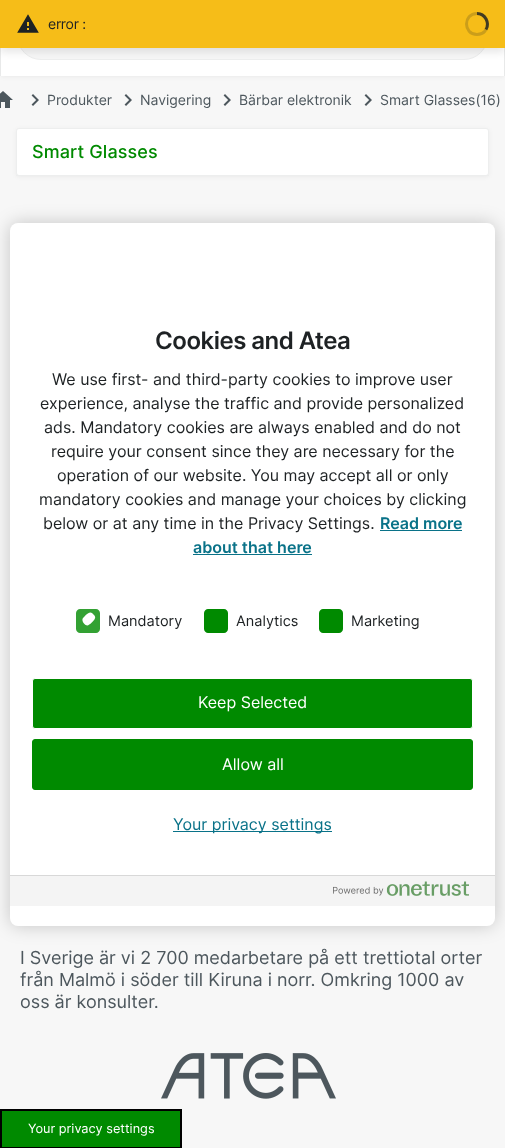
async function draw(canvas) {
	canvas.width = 505;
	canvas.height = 1148;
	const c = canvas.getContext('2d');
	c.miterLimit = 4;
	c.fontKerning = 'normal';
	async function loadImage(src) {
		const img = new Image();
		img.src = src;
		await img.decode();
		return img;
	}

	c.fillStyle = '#f7f7f7';
	c.fillRect(0, 0, 505, 1148);
	c.fillStyle = '#edeeee';
	c.fillRect(504, 48, 1, 28);
	c.fillRect(0, 48, 1, 28);
	c.fillStyle = '#0000000d';
	c.filter = 'blur(2px)';
	c.beginPath();
	c.rect(1, -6, 503, 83);
	c.fill();
	c.filter = 'none';
	c.fillStyle = '#fff';
	c.fillRect(1, 48, 503, 28);
	c.fillStyle = '#f7f7f7';
	c.beginPath();
	c.roundRect(17.5, 12.5, 470, 47, 23.5);
	c.fill();
	c.strokeStyle = '#edeeee';
	c.stroke();
	c.fillStyle = '#0000001a';
	c.filter = 'blur(4px)';
	c.beginPath();
	c.rect(0, 4, 505, 48);
	c.fill();
	c.filter = 'none';
	c.fillStyle = '#f6bd18';
	c.fillRect(0, 0, 505, 48);
	c.drawImage(await loadImage('img1.png'), 17, 14, 22, 19);
	c.letterSpacing = '-0.25px';
	c.font = '14px Inter';
	c.fillStyle = '#1e2224';
	c.fillText('error :', 48, 29);
	c.beginPath();
	c.moveTo(477, 13.5);
	c.bezierCurveTo(491, 13.5, 491, 34.5, 477, 34.5);
	c.bezierCurveTo(463, 34.5, 463, 13.5, 477, 13.5);
	c.strokeStyle = '#cb9e1a';
	c.lineWidth = 3;
	c.stroke();
	c.beginPath();
	c.moveTo(477, 13.5);
	c.bezierCurveTo(485, 13.5, 490, 23, 486, 29.5);
	c.strokeStyle = '#1e2224cc';
	c.stroke();
	c.drawImage(await loadImage('img2.png'), 0, 91, 13, 17);
	c.drawImage(await loadImage('img3.png'), 31, 94, 8, 12);
	c.letterSpacing = '0px';
	c.fillStyle = '#4d575d';
	c.fillText('Produkter', 47, 105);
	c.drawImage(await loadImage('img3.png'), 124, 94, 8, 12);
	c.fillText('Navigering', 140, 105);
	c.drawImage(await loadImage('img3.png'), 223, 94, 8, 12);
	c.fillText('Bärbar elektronik', 239, 105);
	c.drawImage(await loadImage('img3.png'), 364, 94, 8, 12);
	c.fillText('Smart Glasses(16)', 380, 105);
	c.fillStyle = '#0000000d';
	c.filter = 'blur(2px)';
	c.beginPath();
	c.roundRect(16, 129, 473, 48, 3);
	c.fill();
	c.filter = 'none';
	c.fillStyle = '#fff';
	c.beginPath();
	c.roundRect(16.5, 128.5, 472, 47, 2.5);
	c.fill();
	c.strokeStyle = '#edeeee';
	c.lineWidth = 1;
	c.stroke();
	c.save();
	c.beginPath();
	c.rect(16, 128, 473, 48);
	c.clip();
	c.fillStyle = '#edeeee';
	c.beginPath();
	c.moveTo(-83, 29);
	c.lineTo(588, 29);
	c.lineTo(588, 275);
	c.lineTo(-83, 275);
	c.closePath();
	c.moveTo(16, 126);
	c.lineTo(489, 126);
	c.lineTo(489, 175);
	c.lineTo(16, 175);
	c.lineTo(16, 174);
	c.closePath();
	c.fill('evenodd');
	c.restore();
	c.letterSpacing = '0.1px';
	c.font = '500 18px Inter';
	c.fillStyle = '#008a00';
	c.fillText('Smart Glasses', 32, 158);
	c.letterSpacing = '0px';
	c.font = '18px Inter';
	c.fillStyle = '#4d575d';
	for (const [text, x, y] of [
		['I Sverige är vi 2 700 medarbetare på ett trettiotal orter', 20, 964],
		['från Malmö i söder till Kiruna i norr. Omkring 1000 av', 20, 986],
		['oss är konsulter.', 20, 1008],
	]) {
		c.fillText(text, x, y);
	}
	c.drawImage(await loadImage('img4.png'), 161, 1053, 175, 46);
	c.fillStyle = '#00000033';
	c.filter = 'blur(9px)';
	c.beginPath();
	c.roundRect(10, 223, 485, 703, 8);
	c.fill();
	c.filter = 'none';
	c.fillStyle = '#fff';
	c.beginPath();
	c.roundRect(10, 223, 485, 703, 8);
	c.fill();
	c.letterSpacing = '-0.5px';
	c.font = '600 24px Inter';
	c.fillStyle = '#1e2224';
	c.fillText('Cookies and Atea', 155, 349);
	c.letterSpacing = '0px';
	c.font = '16px Inter';
	for (const [text, x, y] of [
		['We use first- and third-party cookies to improve user', 52, 385],
		['experience, analyse the traffic and provide personalized', 40, 409],
		['ads. Mandatory cookies are always enabled and do not', 44, 433],
		['require your consent since they are necessary for the', 51, 457],
		['operation of our website. You may accept all or only', 57, 481],
		['mandatory cookies and manage your choices by clicking', 39, 505],
		['below or at any time in the Privacy Settings.', 43, 529],
	]) {
		c.fillText(text, x, y);
	}
	c.font = '600 16px Inter';
	c.fillStyle = '#097288';
	c.fillText('Read more', 380, 529);
	c.fillRect(380, 530, 82, 1);
	c.fillText('about that here', 193, 553);
	c.fillRect(193, 554, 119, 1);
	c.fillStyle = '#33a133';
	c.beginPath();
	c.moveTo(80, 609);
	c.lineTo(96, 609);
	c.bezierCurveTo(98, 609, 100, 611, 100, 613);
	c.lineTo(100, 629);
	c.bezierCurveTo(100, 631, 98, 633, 96, 633);
	c.lineTo(80, 633);
	c.bezierCurveTo(78, 633, 76, 631, 76, 629);
	c.lineTo(76, 613);
	c.bezierCurveTo(76, 611, 78, 609, 80, 609);
	c.closePath();
	c.fill();
	c.fillStyle = '#fff';
	c.beginPath();
	c.moveTo(83, 618);
	c.bezierCurveTo(84.5, 616.5, 89, 610.5, 92, 613);
	c.lineTo(94.5, 615.5);
	c.bezierCurveTo(95, 616.5, 95.5, 617.5, 95, 618);
	c.bezierCurveTo(95, 620, 89, 625.5, 87.5, 625.5);
	c.bezierCurveTo(84.5, 625.5, 81, 620.5, 83, 618);
	c.closePath();
	c.fill();
	c.font = '14.5px Inter';
	c.fillStyle = '#1e2224';
	c.fillText('Mandatory', 108, 626);
	c.fillStyle = '#008a00';
	c.beginPath();
	c.moveTo(208, 609);
	c.lineTo(224, 609);
	c.bezierCurveTo(226, 609, 228, 611, 228, 613);
	c.lineTo(228, 629);
	c.bezierCurveTo(228, 631, 226, 633, 224, 633);
	c.lineTo(208, 633);
	c.bezierCurveTo(206, 633, 204, 631, 204, 629);
	c.lineTo(204, 613);
	c.bezierCurveTo(204, 611, 206, 609, 208, 609);
	c.closePath();
	c.fill();
	c.fillStyle = '#1e2224';
	c.fillText('Analytics', 236, 626);
	c.fillStyle = '#008a00';
	c.beginPath();
	c.moveTo(323, 609);
	c.lineTo(339, 609);
	c.bezierCurveTo(341, 609, 343, 611, 343, 613);
	c.lineTo(343, 629);
	c.bezierCurveTo(343, 631, 341, 633, 339, 633);
	c.lineTo(323, 633);
	c.bezierCurveTo(321, 633, 319, 631, 319, 629);
	c.lineTo(319, 613);
	c.bezierCurveTo(319, 611, 321, 609, 323, 609);
	c.closePath();
	c.fill();
	c.fillStyle = '#1e2224';
	c.fillText('Marketing', 351, 626);
	c.fillStyle = '#008a00';
	c.beginPath();
	c.roundRect(32.5, 678.5, 440, 50, 2.5);
	c.fill();
	c.strokeStyle = '#fff';
	c.stroke();
	c.font = '16px Inter';
	c.fillStyle = '#fff';
	c.fillText('Keep Selected', 198, 708);
	c.fillStyle = '#008a00';
	c.beginPath();
	c.roundRect(32.5, 739.5, 440, 50, 2.5);
	c.fill();
	c.strokeStyle = '#008a00';
	c.stroke();
	c.fillStyle = '#fff';
	c.fillText('Allow all', 222, 770);
	c.fillStyle = '#097288';
	c.fillRect(173, 831, 159, 1);
	c.fillText('Your privacy settings', 173, 830);
	c.fillStyle = '#f4f4f4';
	c.fillRect(10, 876, 485, 30);
	c.fillStyle = '#d8d8d8';
	c.fillRect(10, 875, 485, 1);
	c.drawImage(await loadImage('img5.png'), 333, 881, 136, 15);
	c.fillStyle = '#008a00';
	c.beginPath();
	c.rect(1, 1110, 180, 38);
	c.fill();
	c.strokeStyle = '#000';
	c.lineWidth = 2;
	c.stroke();
	c.font = '12.75px Inter';
	c.fillStyle = '#fff';
	c.fillText('Your privacy settings', 28, 1133);
}

draw(document.querySelector('canvas'));
